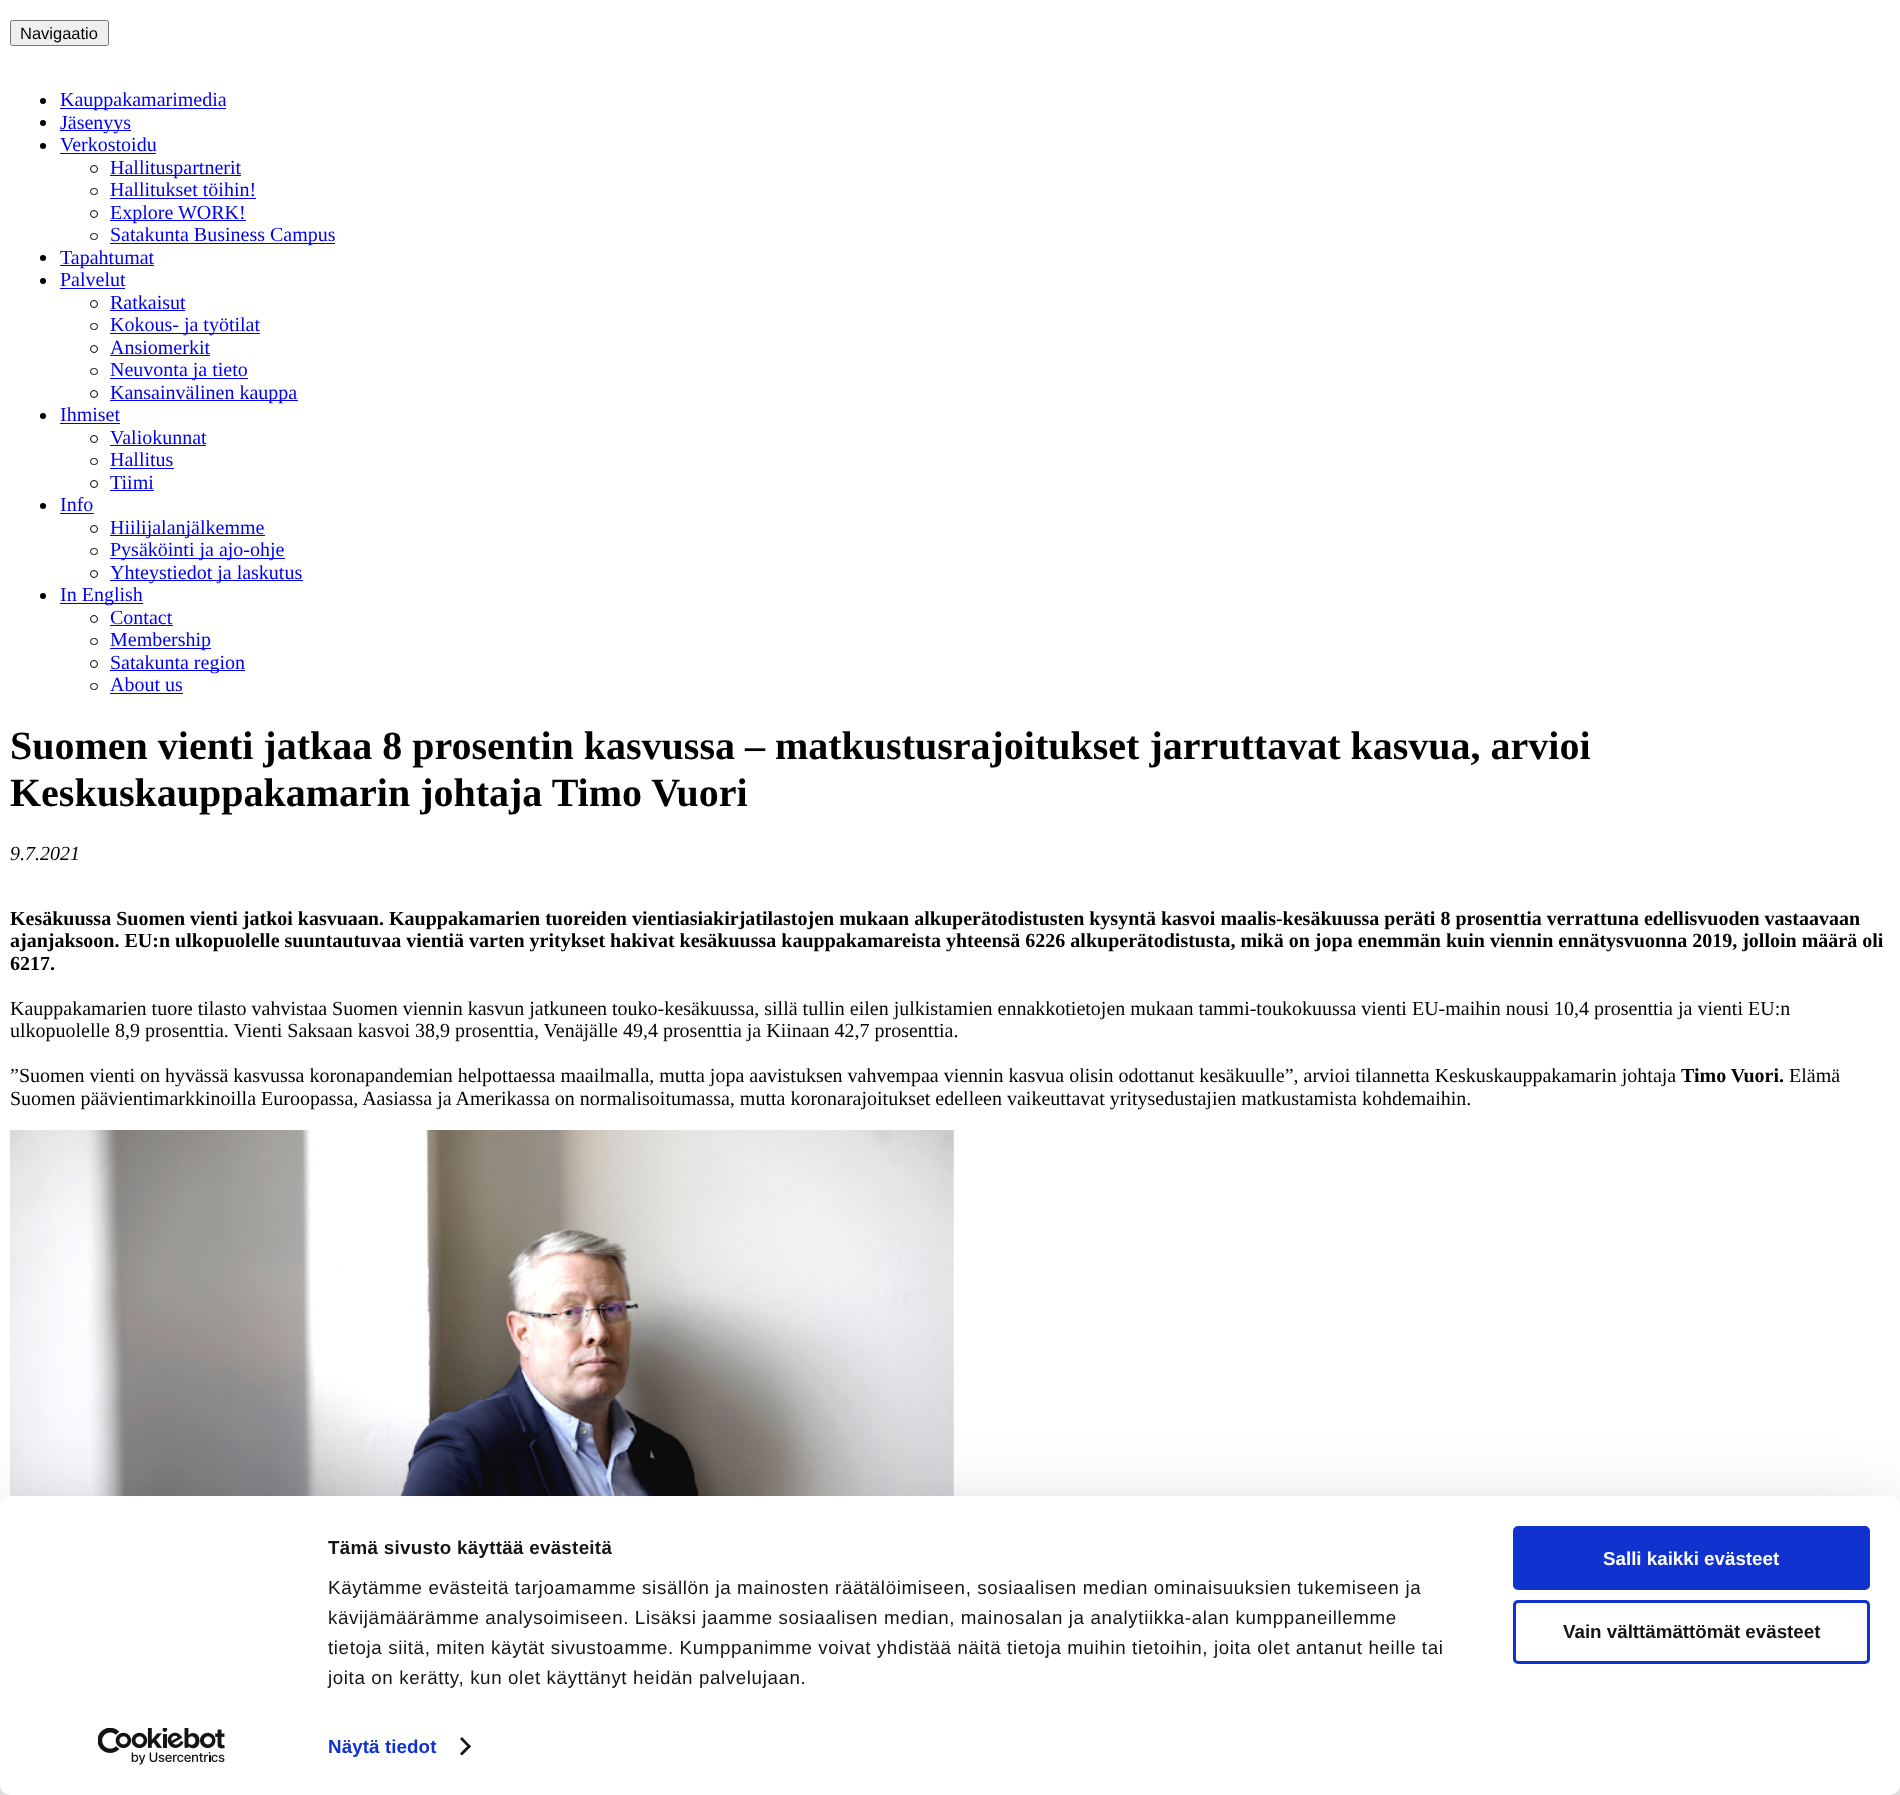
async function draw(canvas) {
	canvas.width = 1900;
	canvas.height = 1795;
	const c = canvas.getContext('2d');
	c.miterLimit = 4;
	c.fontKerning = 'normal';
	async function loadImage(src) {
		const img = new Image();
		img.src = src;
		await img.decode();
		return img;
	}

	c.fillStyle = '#fff';
	c.fillRect(0, 0, 1900, 1795);
	c.fillStyle = '#efefef';
	c.beginPath();
	c.roundRect(10.5, 20.5, 98, 25, 2);
	c.fill();
	c.strokeStyle = '#767676';
	c.stroke();
	c.font = '16.5px Liberation Sans';
	c.fillStyle = '#000';
	c.fillText('Navigaatio', 20, 39);
	c.beginPath();
	c.arc(43, 101, 3, 0, 2 * Math.PI);
	c.fill();
	c.fillStyle = '#00e';
	c.fillRect(60, 108, 166, 1);
	c.font = '20px Liberation Serif';
	c.fillText('Kauppakamarimedia', 60, 106);
	c.fillStyle = '#000';
	c.beginPath();
	c.arc(43, 123, 3, 0, 2 * Math.PI);
	c.fill();
	c.fillStyle = '#00e';
	c.fillRect(60, 130, 71, 1);
	c.fillText('Jäsenyys', 60, 129);
	c.fillStyle = '#000';
	c.beginPath();
	c.arc(43, 146, 3, 0, 2 * Math.PI);
	c.fill();
	c.fillStyle = '#00e';
	c.fillText('Verkostoidu', 60, 151);
	c.fillRect(60, 153, 96, 1);
	c.beginPath();
	c.arc(94, 169, 3.5, 0, 2 * Math.PI);
	c.strokeStyle = '#000';
	c.stroke();
	c.fillRect(110, 175, 131, 1);
	c.fillText('Hallituspartnerit', 110, 174);
	c.beginPath();
	c.roundRect(90.5, 188.5, 7, 6, 3);
	c.stroke();
	c.fillText('Hallitukset töihin!', 110, 196);
	c.fillRect(110, 198, 146, 1);
	c.beginPath();
	c.arc(94, 214, 3.5, 0, 2 * Math.PI);
	c.stroke();
	c.fillRect(110, 220, 136, 1);
	c.fillText('Explore WORK!', 110, 219);
	c.beginPath();
	c.roundRect(90.5, 233.5, 7, 6, 3);
	c.stroke();
	c.fillRect(110, 243, 225, 1);
	c.fillText('Satakunta Business Campus', 110, 241);
	c.fillStyle = '#000';
	c.beginPath();
	c.arc(43, 258, 3, 0, 2 * Math.PI);
	c.fill();
	c.fillStyle = '#00e';
	c.fillRect(60, 265, 94, 1);
	c.fillText('Tapahtumat', 60, 264);
	c.fillStyle = '#000';
	c.beginPath();
	c.arc(43, 281, 3, 0, 2 * Math.PI);
	c.fill();
	c.fillStyle = '#00e';
	c.fillText('Palvelut', 60, 286);
	c.fillRect(60, 288, 65, 1);
	c.beginPath();
	c.arc(94, 304, 3.5, 0, 2 * Math.PI);
	c.stroke();
	c.fillText('Ratkaisut', 110, 309);
	c.fillRect(110, 310, 75, 1);
	c.beginPath();
	c.roundRect(90.5, 323.5, 7, 6, 3);
	c.stroke();
	c.fillRect(110, 333, 150, 1);
	c.fillText('Kokous- ja työtilat', 110, 331);
	c.beginPath();
	c.arc(94, 349, 3.5, 0, 2 * Math.PI);
	c.stroke();
	c.fillText('Ansiomerkit', 110, 354);
	c.fillRect(110, 355, 100, 1);
	c.beginPath();
	c.roundRect(90.5, 368.5, 7, 6, 3);
	c.stroke();
	c.fillRect(110, 378, 138, 1);
	c.fillText('Neuvonta ja tieto', 110, 376);
	c.beginPath();
	c.arc(94, 394, 3.5, 0, 2 * Math.PI);
	c.stroke();
	c.fillRect(110, 400, 188, 1);
	c.fillText('Kansainvälinen kauppa', 110, 399);
	c.fillStyle = '#000';
	c.beginPath();
	c.arc(43, 416, 3, 0, 2 * Math.PI);
	c.fill();
	c.fillStyle = '#00e';
	c.fillText('Ihmiset', 60, 421);
	c.fillRect(60, 423, 60, 1);
	c.beginPath();
	c.arc(94, 439, 3.5, 0, 2 * Math.PI);
	c.stroke();
	c.fillText('Valiokunnat', 110, 444);
	c.fillRect(110, 445, 96, 1);
	c.beginPath();
	c.roundRect(90.5, 458.5, 7, 6, 3);
	c.stroke();
	c.fillText('Hallitus', 110, 466);
	c.fillRect(110, 468, 64, 1);
	c.beginPath();
	c.arc(94, 484, 3.5, 0, 2 * Math.PI);
	c.stroke();
	c.fillText('Tiimi', 110, 489);
	c.fillRect(110, 490, 44, 1);
	c.fillStyle = '#000';
	c.beginPath();
	c.arc(43, 506, 3, 0, 2 * Math.PI);
	c.fill();
	c.fillStyle = '#00e';
	c.fillText('Info', 60, 511);
	c.fillRect(60, 513, 34, 1);
	c.beginPath();
	c.arc(94, 529, 3.5, 0, 2 * Math.PI);
	c.stroke();
	c.fillRect(110, 535, 155, 1);
	c.fillText('Hiilijalanjälkemme', 110, 534);
	c.beginPath();
	c.roundRect(90.5, 548.5, 7, 6, 3);
	c.stroke();
	c.fillRect(110, 558, 175, 1);
	c.fillText('Pysäköinti ja ajo-ohje', 110, 556);
	c.beginPath();
	c.arc(94, 574, 3.5, 0, 2 * Math.PI);
	c.stroke();
	c.fillRect(110, 580, 193, 1);
	c.fillText('Yhteystiedot ja laskutus', 110, 579);
	c.fillStyle = '#000';
	c.beginPath();
	c.arc(43, 596, 3, 0, 2 * Math.PI);
	c.fill();
	c.fillStyle = '#00e';
	c.fillRect(60, 603, 83, 1);
	c.fillText('In English', 60, 601);
	c.beginPath();
	c.arc(94, 619, 3.5, 0, 2 * Math.PI);
	c.stroke();
	c.fillText('Contact', 110, 624);
	c.fillRect(110, 625, 63, 1);
	c.beginPath();
	c.roundRect(90.5, 638.5, 7, 6, 3);
	c.stroke();
	c.fillRect(110, 648, 101, 1);
	c.fillText('Membership', 110, 646);
	c.beginPath();
	c.arc(94, 664, 3.5, 0, 2 * Math.PI);
	c.stroke();
	c.fillRect(110, 670, 135, 1);
	c.fillText('Satakunta region', 110, 669);
	c.beginPath();
	c.roundRect(90.5, 683.5, 7, 6, 3);
	c.stroke();
	c.fillText('About us', 110, 691);
	c.fillRect(110, 693, 73, 1);
	c.font = 'bold 40px Liberation Serif';
	c.fillStyle = '#000';
	c.fillText('Suomen vienti jatkaa 8 prosentin kasvussa – matkustusrajoitukset jarruttavat kasvua, arvioi', 10, 759);
	c.fillText('Keskuskauppakamarin johtaja Timo Vuori', 10, 806);
	c.font = 'italic 20px Liberation Serif';
	c.fillText('9.7.2021', 10, 860);
	c.font = 'bold 20px Liberation Serif';
	for (const [text, x, y] of [
		['Kesäkuussa Suomen vienti jatkoi kasvuaan. Kauppakamarien tuoreiden vientiasiakirjatilastojen mukaan alkuperätodistusten kysyntä kasvoi maalis-kesäkuussa peräti 8 prosenttia verrattuna edellisvuoden vastaavaan', 10, 925],
		['ajanjaksoon. EU:n ulkopuolelle suuntautuvaa vientiä varten yritykset hakivat kesäkuussa kauppakamareista yhteensä 6226 alkuperätodistusta, mikä on jopa enemmän kuin viennin ennätysvuonna 2019, jolloin määrä oli', 10, 947],
		['6217.', 10, 970],
	]) {
		c.fillText(text, x, y);
	}
	c.font = '20px Liberation Serif';
	for (const [text, x, y] of [
		['Kauppakamarien tuore tilasto vahvistaa Suomen viennin kasvun jatkuneen touko-kesäkuussa, sillä tullin eilen julkistamien ennakkotietojen mukaan tammi-toukokuussa vienti EU-maihin nousi 10,4 prosenttia ja vienti EU:n', 10, 1015],
		['ulkopuolelle 8,9 prosenttia. Vienti Saksaan kasvoi 38,9 prosenttia, Venäjälle 49,4 prosenttia ja Kiinaan 42,7 prosenttia.', 10, 1037],
		['”Suomen vienti on hyvässä kasvussa koronapandemian helpottaessa maailmalla, mutta jopa aavistuksen vahvempaa viennin kasvua olisin odottanut kesäkuulle”, arvioi tilannetta Keskuskauppakamarin johtaja', 10, 1082],
	]) {
		c.fillText(text, x, y);
	}
	c.font = 'bold 20px Liberation Serif';
	c.fillText('Timo Vuori.', 1681, 1082);
	c.font = '20px Liberation Serif';
	c.fillText('Elämä', 1789, 1082);
	c.fillText('Suomen päävientimarkkinoilla Euroopassa, Aasiassa ja Amerikassa on normalisoitumassa, mutta koronarajoitukset edelleen vaikeuttavat yritysedustajien matkustamista kohdemaihin.', 10, 1105);
	c.drawImage(await loadImage('img1.png'), 10, 1130, 944, 366);
	c.fillStyle = '#0000004d';
	c.filter = 'blur(44px)';
	c.beginPath();
	c.roundRect(0, 1534, 1900, 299, 10);
	c.fill();
	c.filter = 'none';
	c.fillStyle = '#fff';
	c.beginPath();
	c.roundRect(0, 1496, 1900, 299, 10);
	c.fill();
	c.letterSpacing = '0.3px';
	c.font = 'bold 18.75px Liberation Sans';
	c.fillStyle = '#141414';
	c.fillText('Tämä sivusto käyttää evästeitä', 328, 1554);
	c.letterSpacing = '0.62px';
	c.font = '18.75px Liberation Sans';
	for (const [text, x, y] of [
		['Käytämme evästeitä tarjoamamme sisällön ja mainosten räätälöimiseen, sosiaalisen median ominaisuuksien tukemiseen ja', 328, 1594],
		['kävijämäärämme analysoimiseen. Lisäksi jaamme sosiaalisen median, mainosalan ja analytiikka-alan kumppaneillemme', 328, 1624],
		['tietoja siitä, miten käytät sivustoamme. Kumppanimme voivat yhdistää näitä tietoja muihin tietoihin, joita olet antanut heille tai', 328, 1654],
		['joita on kerätty, kun olet käyttänyt heidän palvelujaan.', 328, 1684],
	]) {
		c.fillText(text, x, y);
	}
	c.letterSpacing = '0.1px';
	c.font = 'bold 18.75px Liberation Sans';
	c.fillStyle = '#1032cf';
	c.fillText('Näytä tiedot', 328, 1753);
	c.fillStyle = '#141414';
	c.beginPath();
	c.moveTo(462, 1737);
	c.lineTo(471, 1746.5);
	c.lineTo(469, 1748);
	c.lineTo(460, 1739);
	c.closePath();
	c.fill();
	c.beginPath();
	c.moveTo(469, 1744.5);
	c.lineTo(471, 1746.5);
	c.lineTo(462, 1755.5);
	c.lineTo(460, 1753.5);
	c.closePath();
	c.fill();
	c.fillStyle = '#1032cf';
	c.beginPath();
	c.roundRect(1514.5, 1527.5, 354, 61, 3.5);
	c.fill();
	c.strokeStyle = '#1032cf';
	c.lineWidth = 3;
	c.stroke();
	c.letterSpacing = '0px';
	c.fillStyle = '#fff';
	c.fillText('Salli kaikki evästeet', 1603, 1565);
	c.beginPath();
	c.roundRect(1514.5, 1601.5, 354, 61, 3.5);
	c.stroke();
	c.fillStyle = '#141414';
	c.fillText('Vain välttämättömät evästeet', 1563, 1638);
	c.drawImage(await loadImage('img2.png'), 98, 1728, 127, 37);
}

draw(document.querySelector('canvas'));
